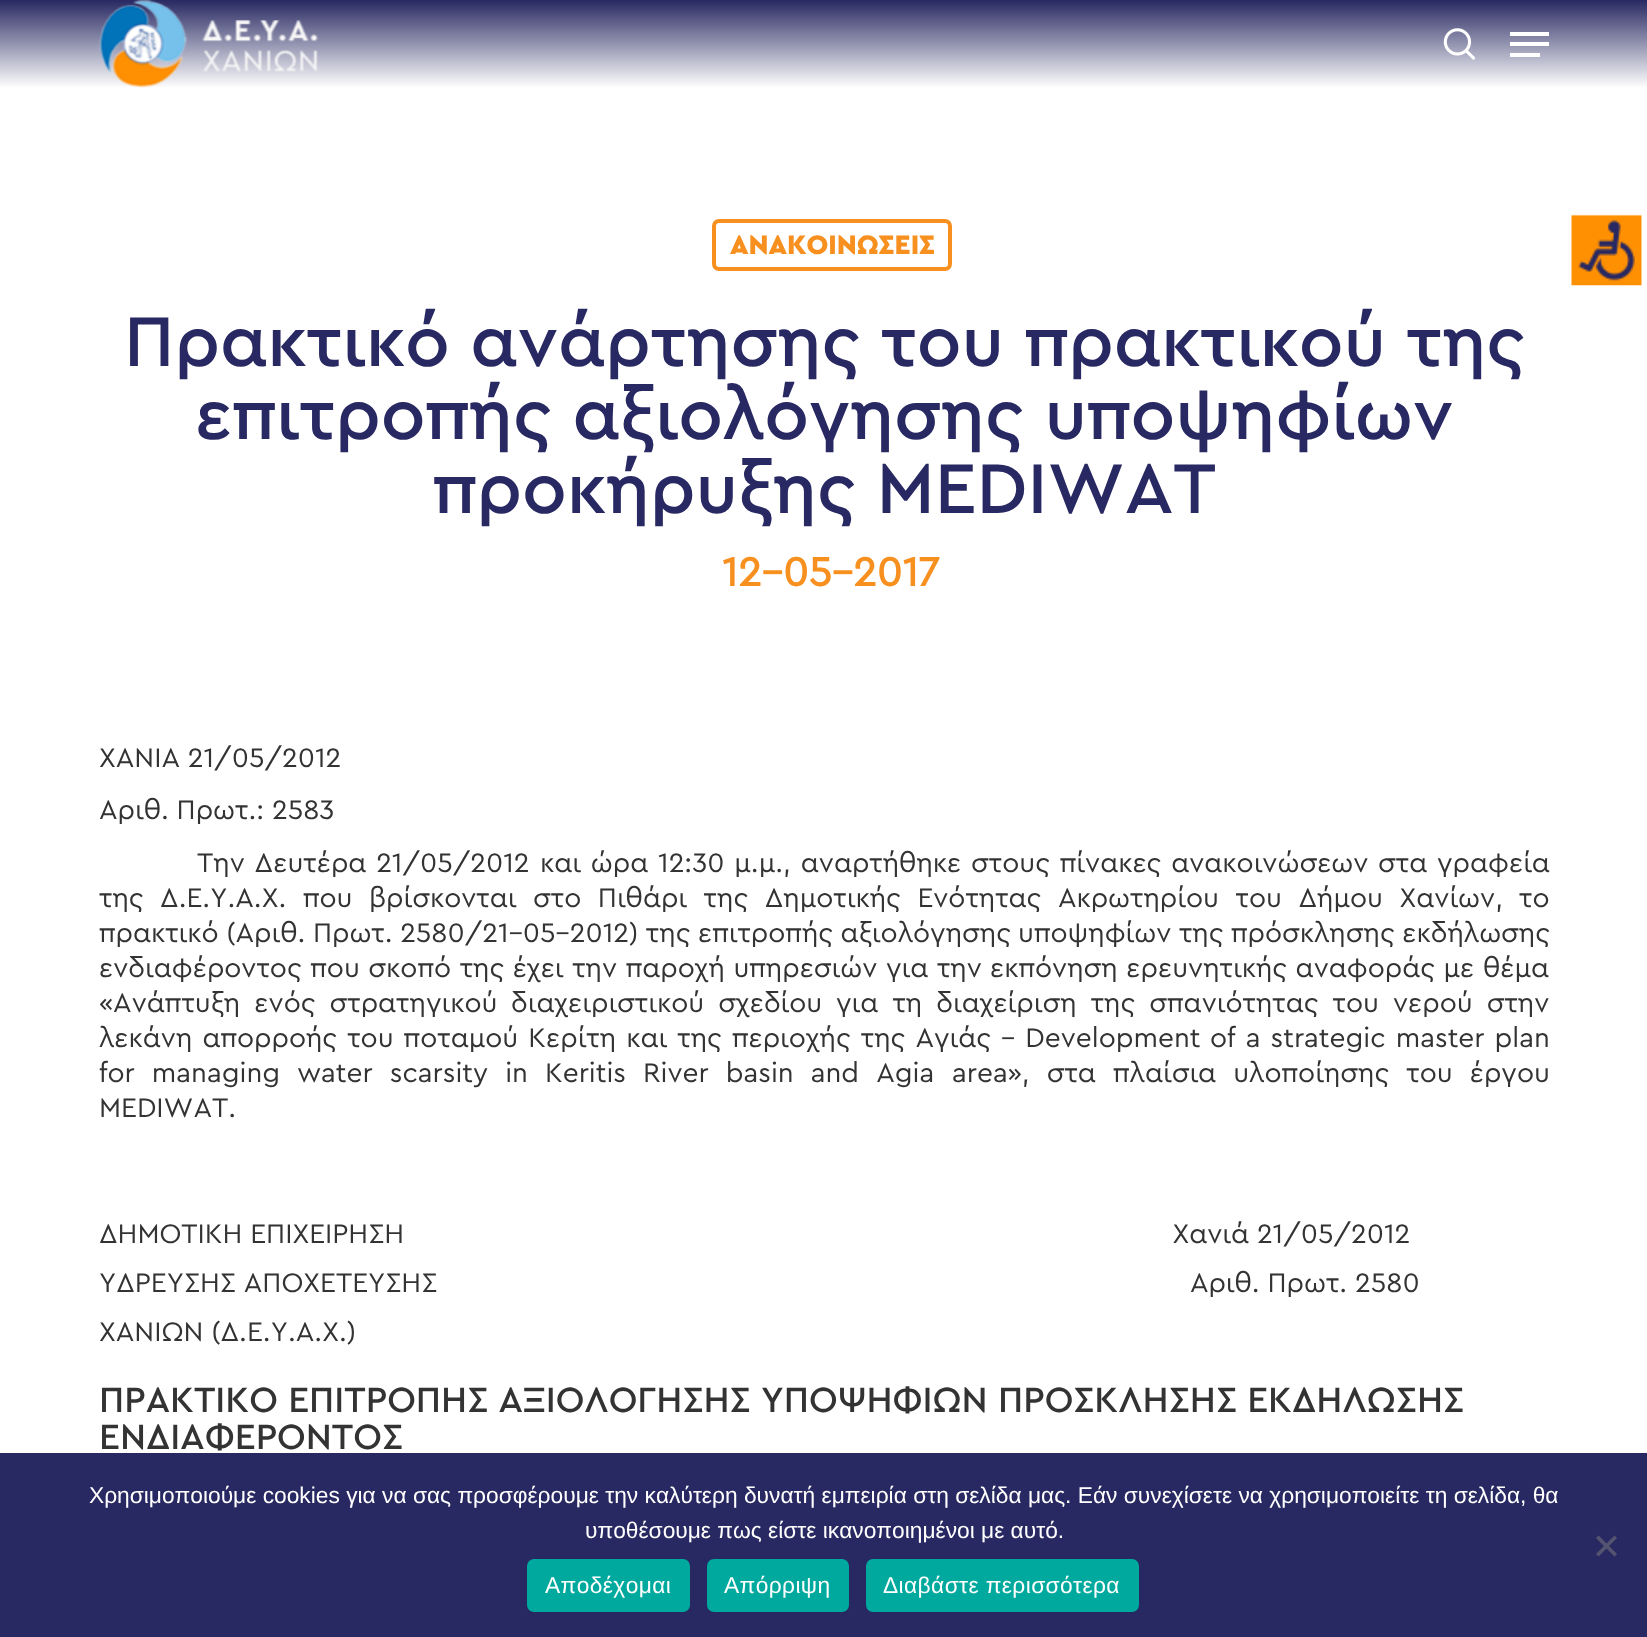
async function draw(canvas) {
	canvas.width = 1647;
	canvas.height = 1637;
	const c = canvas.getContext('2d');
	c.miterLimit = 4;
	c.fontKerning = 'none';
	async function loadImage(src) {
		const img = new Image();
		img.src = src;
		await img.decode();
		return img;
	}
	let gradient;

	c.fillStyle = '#fff';
	c.fillRect(0, 0, 1647, 1637);
	gradient = c.createLinearGradient(824, 88, 824, 0);
	gradient.addColorStop(0, '#fff');
	gradient.addColorStop(1, '#282962');
	c.fillStyle = gradient;
	c.fillRect(0, 0, 1647, 87);
	c.drawImage(await loadImage('img1.png'), 99, 0, 219, 88);
	c.drawImage(await loadImage('img2.png'), 1443, 28, 33, 32);
	for (const [x, y, w, h, color] of [
		[1510, 32, 39, 4, '#fff'],
		[1510, 53, 30, 4, '#fff'],
		[1510, 42, 39, 4, '#fff'],
	]) {
		c.fillStyle = color;
		c.fillRect(x, y, w, h);
	}
	c.beginPath();
	c.roundRect(714, 221, 236, 48, 5);
	c.strokeStyle = '#f89020';
	c.lineWidth = 4;
	c.stroke();
	c.font = '900 28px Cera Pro';
	c.fillStyle = '#f89020';
	c.fillText('ΑΝΑΚΟΙΝΏΣΕΙΣ', 730, 254);
	c.font = '500 73.5px Cera Pro';
	c.fillStyle = '#282862';
	for (const [text, x, y] of [
		['Πρακτικό ανάρτησης του πρακτικού της', 124, 366],
		['επιτροπής αξιολόγησης υποψηφίων', 195, 439],
		['προκήρυξης MEDIWAT', 433, 513],
	]) {
		c.fillText(text, x, y);
	}
	c.font = 'bold 42px Cera Pro';
	c.fillStyle = '#f89020';
	c.fillText('12-05-2017', 722, 586);
	c.font = '28px Cera Pro';
	c.fillStyle = '#333';
	c.fillText('ΧΑΝΙΑ 21/05/2012', 99, 767);
	c.fillText('Αριθ. Πρωτ.: 2583', 99, 819);
	c.wordSpacing = '2px';
	c.fillText('Την Δευτέρα 21/05/2012', 197, 872);
	c.fillText('και ώρα 12:30 μ.μ., αναρτήθηκε στους πίνακες ανακοινώσεων', 540, 872);
	c.fillText('στα γραφεία', 1378, 872);
	c.wordSpacing = '8.75px';
	c.fillText('της Δ.Ε.Υ.Α.Χ. που βρίσκονται', 99, 907);
	c.fillText('στο Πιθάρι της Δημοτικής Ενότητας Ακρωτηρίου του Δήμου Χανίων,', 533, 907);
	c.fillText('το', 1519, 907);
	c.wordSpacing = '-0.25px';
	c.fillText('πρακτικό (Αριθ. Πρωτ. 2580/21-05-2012) της επιτροπής αξιολόγησης', 99, 942);
	c.fillText('υποψηφίων της πρόσκλησης εκδήλωσης', 1018, 942);
	c.wordSpacing = '0.75px';
	c.fillText('ενδιαφέροντος που σκοπό της έχει την παροχή υπηρεσιών για την', 99, 977);
	c.fillText('εκπόνηση ερευνητικής αναφοράς με θέμα', 990, 977);
	c.wordSpacing = '6.25px';
	c.fillText('«Ανάπτυξη ενός στρατηγικού', 99, 1012);
	c.fillText('διαχειριστικού σχεδίου', 511, 1012);
	c.fillText('για τη διαχείριση της σπανιότητας του νερού στην', 836, 1012);
	c.wordSpacing = '2.25px';
	c.fillText('λεκάνη απορροής του ποταμού Κερίτη και της περιοχής της Αγιάς – Development', 99, 1047);
	c.fillText('of a strategic master plan', 1210, 1047);
	c.wordSpacing = '9.25px';
	c.fillText('for managing water scarsity in Keritis River basin and Agia', 99, 1082);
	c.fillText('area», στα πλαίσια υλοποίησης του έργου', 952, 1082);
	c.wordSpacing = '0px';
	for (const [text, x, y] of [
		['MEDIWAT.', 99, 1117],
		['ΔΗΜΟΤΙΚΗ ΕΠΙΧΕΙΡΗΣΗ                                                                                                  Χανιά 21/05/2012', 99, 1243],
		['ΥΔΡΕΥΣΗΣ ΑΠΟΧΕΤΕΥΣΗΣ                                                                                                Αριθ. Πρωτ. 2580', 99, 1292],
		['ΧΑΝΙΩΝ (Δ.Ε.Υ.Α.Χ.)', 99, 1341],
	]) {
		c.fillText(text, x, y);
	}
	c.font = '500 36.75px Cera Pro';
	c.fillText('ΠΡΑΚΤΙΚΟ ΕΠΙΤΡΟΠΗΣ ΑΞΙΟΛΟΓΗΣΗΣ', 99, 1412);
	c.fillText('ΥΠΟΨΗΦΙΩΝ ΠΡΟΣΚΛΗΣΗΣ ΕΚΔΗΛΩΣΗΣ', 761, 1412);
	c.fillText('ΕΝΔΙΑΦΕΡΟΝΤΟΣ', 99, 1449);
	c.drawImage(await loadImage('img3.png'), 1571, 214, 71, 72);
	c.fillStyle = '#282862';
	c.fillRect(0, 1453, 1647, 184);
	c.font = '22.75px Liberation Sans';
	c.fillStyle = '#fff';
	c.fillText('Χρησιμοποιούμε cookies για να σας προσφέρουμε την καλύτερη δυνατή εμπειρία στη σελίδα μας. Εάν συνεχίσετε να χρησιμοποιείτε τη σελίδα, θα', 89, 1503);
	c.fillText('υποθέσουμε πως είστε ικανοποιημένοι με αυτό.', 585, 1538);
	c.fillStyle = '#545471';
	c.beginPath();
	c.moveTo(1614.5, 1535.5);
	c.lineTo(1617, 1538);
	c.lineTo(1598.5, 1556.5);
	c.lineTo(1596, 1554);
	c.closePath();
	c.fill();
	c.beginPath();
	c.moveTo(1596, 1538);
	c.lineTo(1598.5, 1535.5);
	c.lineTo(1617, 1554);
	c.lineTo(1614.5, 1556.5);
	c.closePath();
	c.fill();
	c.fillStyle = '#00a99d';
	c.beginPath();
	c.roundRect(527, 1559, 163, 53, 7);
	c.fill();
	c.letterSpacing = '0.4px';
	c.fillStyle = '#fff';
	c.fillText('Αποδέχομαι', 545, 1593);
	c.fillStyle = '#00a99d';
	c.beginPath();
	c.roundRect(707, 1559, 142, 53, 7);
	c.fill();
	c.fillStyle = '#fff';
	c.fillText('Απόρριψη', 724, 1593);
	c.fillStyle = '#00a99d';
	c.beginPath();
	c.roundRect(866, 1559, 273, 53, 7);
	c.fill();
	c.fillStyle = '#fff';
	c.fillText('Διαβάστε περισσότερα', 883, 1593);
}

draw(document.querySelector('canvas'));
